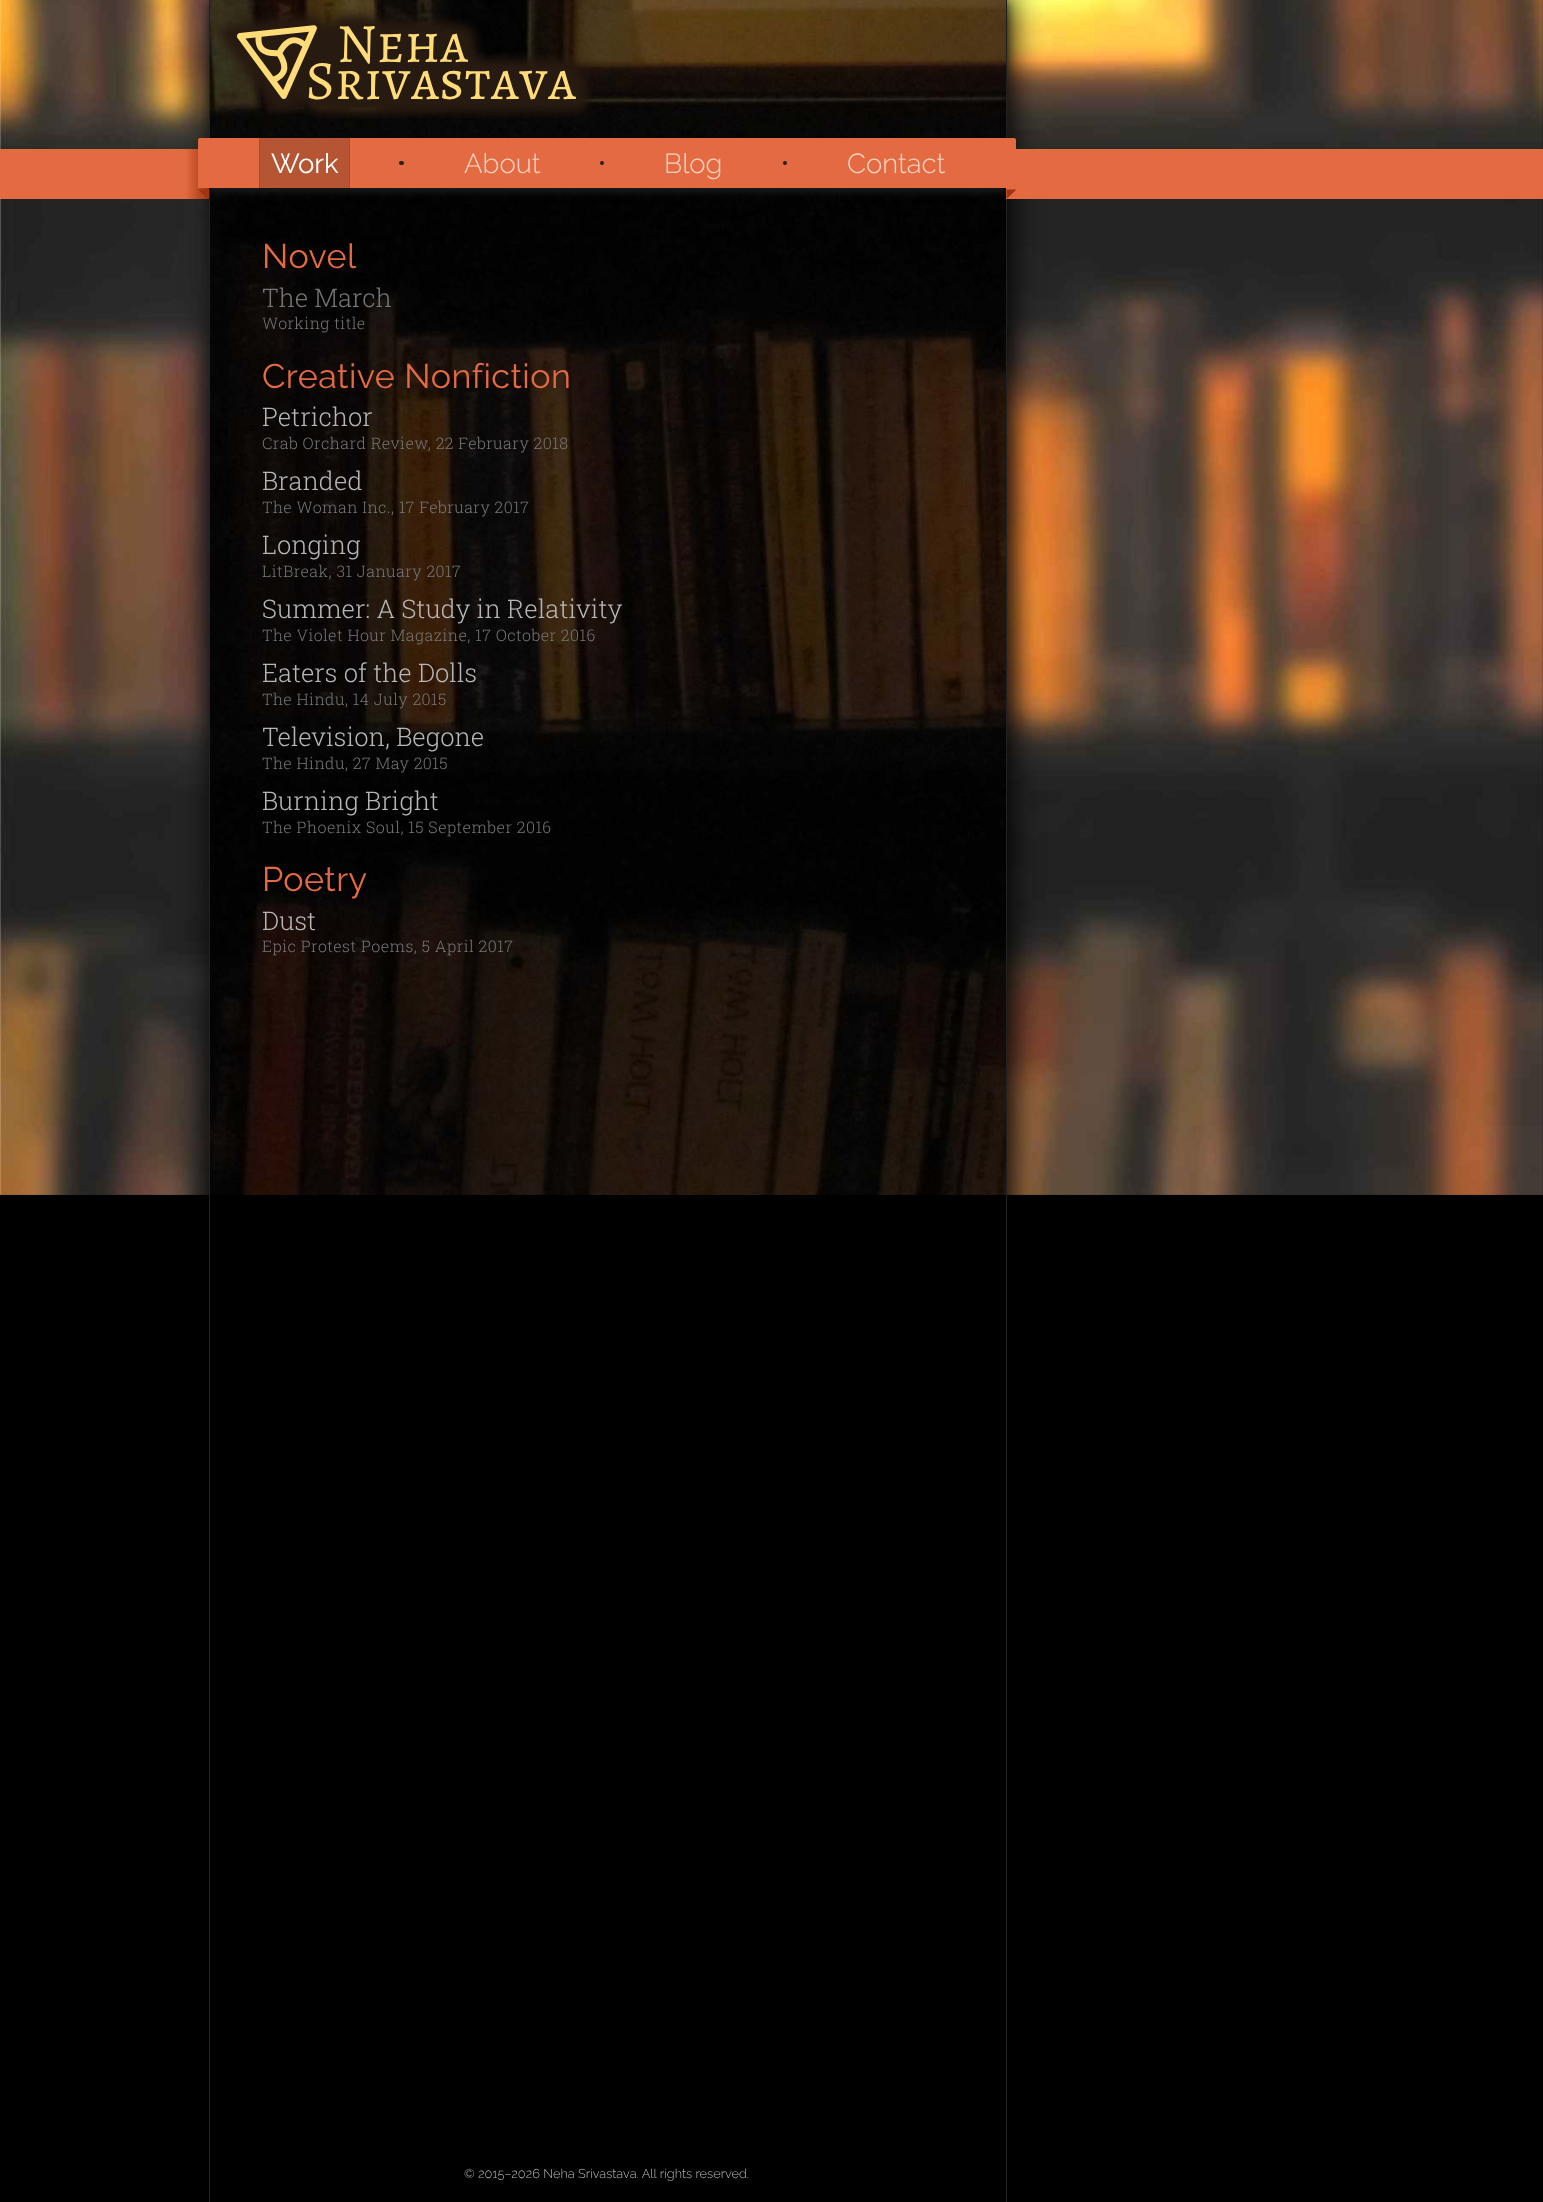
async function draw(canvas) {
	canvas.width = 1543;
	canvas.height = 2202;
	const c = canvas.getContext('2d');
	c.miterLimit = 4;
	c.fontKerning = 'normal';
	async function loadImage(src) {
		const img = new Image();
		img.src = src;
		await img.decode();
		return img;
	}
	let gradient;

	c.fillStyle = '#000';
	c.fillRect(0, 0, 1543, 2202);
	c.drawImage(await loadImage('img1.png'), 0, 0, 1543, 1195);
	c.filter = 'blur(15px)';
	c.beginPath();
	c.rect(213, -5, 798, 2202);
	c.fill();
	c.filter = 'none';
	c.drawImage(await loadImage('img2.png'), 210, 0, 796, 1195);
	c.fillStyle = '#222';
	c.fillRect(1006, 0, 1, 2202);
	c.fillRect(209, 0, 1, 2202);
	c.save();
	c.beginPath();
	c.moveTo(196, 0);
	c.lineTo(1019, 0);
	c.lineTo(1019, 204);
	c.lineTo(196, 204);
	c.closePath();
	c.moveTo(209, 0);
	c.lineTo(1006, 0);
	c.lineTo(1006, 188);
	c.lineTo(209, 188);
	c.closePath();
	c.clip('evenodd');
	c.fillStyle = '#212121';
	c.filter = 'blur(4px)';
	c.beginPath();
	c.rect(209, 3, 797, 188);
	c.fill();
	c.filter = 'none';
	c.restore();
	c.drawImage(await loadImage('img3.png'), 217, 9, 375, 110);
	c.fillStyle = '#e46b41';
	c.fillRect(209, 138, 797, 50);
	gradient = c.createLinearGradient(209, 174, -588, 174);
	gradient.addColorStop(0, '#9e3511');
	gradient.addColorStop(0.03, '#e46b41');
	gradient.addColorStop(1, '#e46b41');
	c.fillStyle = gradient;
	c.fillRect(0, 149, 209, 50);
	c.fillStyle = '#e46b41';
	c.beginPath();
	c.roundRect(198, 138, 11, 50, [2, 0, 0, 0]);
	c.fill();
	c.fillStyle = '#9e3511';
	c.beginPath();
	c.moveTo(208, 199);
	c.lineTo(198, 189.5);
	c.lineTo(208, 189.5);
	c.closePath();
	c.fill();
	c.fillStyle = '#e46b41';
	c.fillRect(1006, 149, 537, 50);
	c.beginPath();
	c.roundRect(1006, 138, 10, 50, [0, 2, 0, 0]);
	c.fill();
	c.fillStyle = '#9e3511';
	c.beginPath();
	c.moveTo(1016.5, 189.5);
	c.lineTo(1006.5, 199);
	c.lineTo(1006.5, 189.5);
	c.closePath();
	c.fill();
	for (const [x, y, w, h, color] of [
		[259, 138, 91, 51, '#00000033'],
		[349, 137, 1, 52, '#0000001a'],
		[259, 137, 1, 52, '#0000001a'],
	]) {
		c.fillStyle = color;
		c.fillRect(x, y, w, h);
	}
	c.font = '27.5px Raleway';
	c.fillStyle = '#fff';
	c.fillText('Work', 271, 173);
	c.fillStyle = '#212121';
	c.beginPath();
	c.roundRect(399, 161, 5, 4, 2);
	c.fill();
	c.font = '300 27.5px Raleway';
	c.fillStyle = '#f7d3c6';
	c.fillText('About', 464, 173);
	c.fillStyle = '#212121';
	c.beginPath();
	c.arc(602, 163, 2, 0, 2 * Math.PI);
	c.fill();
	c.fillStyle = '#f7d3c6';
	c.fillText('Blog', 664, 173);
	c.fillStyle = '#212121';
	c.beginPath();
	c.arc(785, 163, 2, 0, 2 * Math.PI);
	c.fill();
	c.fillStyle = '#f7d3c6';
	c.fillText('Contact', 847, 173);
	c.letterSpacing = '0.45px';
	c.font = '34.1px Raleway';
	c.fillStyle = '#e46b41';
	c.fillText('Novel', 262, 268);
	c.letterSpacing = '0px';
	c.font = '300 25.6px Roboto Slab';
	c.fillStyle = '#767676';
	c.fillText('The March', 262, 307);
	c.letterSpacing = '0.45px';
	c.font = '300 16px Roboto Slab';
	c.fillText('Working title', 262, 329);
	c.font = '34.1px Raleway';
	c.fillStyle = '#e46b41';
	c.fillText('Creative Nonfiction', 262, 388);
	c.letterSpacing = '0px';
	c.font = '300 25.6px Roboto Slab';
	c.fillStyle = '#b6b6b6';
	c.fillText('Petrichor', 262, 426);
	c.letterSpacing = '0.45px';
	c.font = '300 16px Roboto Slab';
	c.fillStyle = '#767676';
	c.fillText('Crab Orchard Review, 22 February 2018', 262, 449);
	c.letterSpacing = '0px';
	c.font = '300 25.6px Roboto Slab';
	c.fillStyle = '#b6b6b6';
	c.fillText('Branded', 262, 490);
	c.letterSpacing = '0.45px';
	c.font = '300 16px Roboto Slab';
	c.fillStyle = '#767676';
	c.fillText('The Woman Inc., 17 February 2017', 262, 513);
	c.letterSpacing = '0px';
	c.font = '300 25.6px Roboto Slab';
	c.fillStyle = '#b6b6b6';
	c.fillText('Longing', 262, 554);
	c.letterSpacing = '0.45px';
	c.font = '300 16px Roboto Slab';
	c.fillStyle = '#767676';
	c.fillText('LitBreak, 31 January 2017', 262, 577);
	c.letterSpacing = '0px';
	c.font = '300 25.6px Roboto Slab';
	c.fillStyle = '#b6b6b6';
	c.fillText('Summer: A Study in Relativity', 262, 618);
	c.letterSpacing = '0.45px';
	c.font = '300 16px Roboto Slab';
	c.fillStyle = '#767676';
	c.fillText('The Violet Hour Magazine, 17 October 2016', 262, 641);
	c.letterSpacing = '0px';
	c.font = '300 25.6px Roboto Slab';
	c.fillStyle = '#b6b6b6';
	c.fillText('Eaters of the Dolls', 262, 682);
	c.letterSpacing = '0.45px';
	c.font = '300 16px Roboto Slab';
	c.fillStyle = '#767676';
	c.fillText('The Hindu, 14 July 2015', 262, 705);
	c.letterSpacing = '0px';
	c.font = '300 25.6px Roboto Slab';
	c.fillStyle = '#b6b6b6';
	c.fillText('Television, Begone', 262, 746);
	c.letterSpacing = '0.45px';
	c.font = '300 16px Roboto Slab';
	c.fillStyle = '#767676';
	c.fillText('The Hindu, 27 May 2015', 262, 769);
	c.letterSpacing = '0px';
	c.font = '300 25.6px Roboto Slab';
	c.fillStyle = '#b6b6b6';
	c.fillText('Burning Bright', 262, 810);
	c.letterSpacing = '0.45px';
	c.font = '300 16px Roboto Slab';
	c.fillStyle = '#767676';
	c.fillText('The Phoenix Soul, 15 September 2016', 262, 833);
	c.font = '34.1px Raleway';
	c.fillStyle = '#e46b41';
	c.fillText('Poetry', 262, 891);
	c.letterSpacing = '0px';
	c.font = '300 25.6px Roboto Slab';
	c.fillStyle = '#b6b6b6';
	c.fillText('Dust', 262, 930);
	c.letterSpacing = '0.45px';
	c.font = '300 16px Roboto Slab';
	c.fillStyle = '#767676';
	c.fillText('Epic Protest Poems, 5 April 2017', 262, 952);
	c.letterSpacing = '0px';
	c.font = '300 12.8px Raleway';
	c.fillStyle = '#b6b6b6';
	c.fillText('© 2015–2026 Neha Srivastava. All rights reserved.', 464, 2178);
}

draw(document.querySelector('canvas'));
